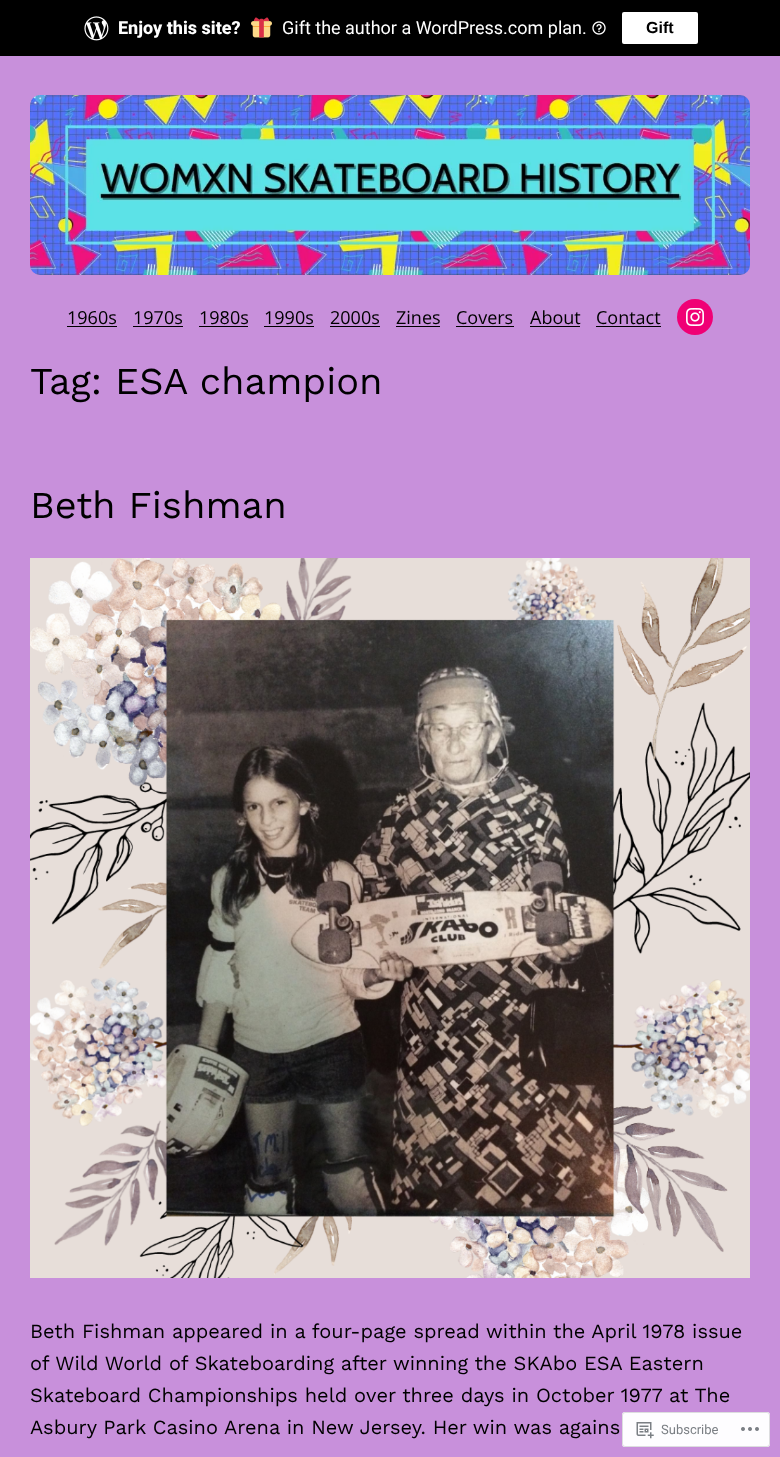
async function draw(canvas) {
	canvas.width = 780;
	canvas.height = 1457;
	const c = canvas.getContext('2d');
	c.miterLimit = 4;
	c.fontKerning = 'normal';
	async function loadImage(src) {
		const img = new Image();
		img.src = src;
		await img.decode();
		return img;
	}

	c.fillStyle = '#c890db';
	c.fillRect(0, 0, 780, 1457);
	c.fillStyle = '#000';
	c.fillRect(0, 0, 780, 56);
	c.drawImage(await loadImage('img1.png'), 84, 16, 25, 25);
	c.font = '800 18px Roboto';
	c.fillStyle = '#fff';
	c.fillText('Enjoy this site?', 118, 34);
	c.drawImage(await loadImage('img2.png'), 251, 17, 21, 21);
	c.font = '18px Roboto';
	c.fillText('Gift the author a WordPress.com plan.', 282, 34);
	c.drawImage(await loadImage('img3.png'), 592, 21, 14, 14);
	c.beginPath();
	c.roundRect(622, 12, 76, 32, 2);
	c.fill();
	c.font = 'bold 16px Liberation Sans';
	c.fillStyle = '#000';
	c.fillText('Gift', 646, 33);
	c.drawImage(await loadImage('img4.png'), 30, 95, 720, 180);
	c.font = '18px Open Sans';
	c.fillText('1960s', 67, 324);
	c.fillRect(67, 326, 50, 1);
	c.fillText('1970s', 133, 324);
	c.fillRect(133, 326, 50, 1);
	c.fillText('1980s', 199, 324);
	c.fillRect(199, 326, 49, 1);
	c.fillText('1990s', 264, 324);
	c.fillRect(264, 326, 50, 1);
	c.fillText('2000s', 330, 324);
	c.fillRect(330, 326, 50, 1);
	c.fillText('Zines', 396, 324);
	c.fillRect(396, 326, 44, 1);
	c.fillText('Covers', 456, 324);
	c.fillRect(456, 326, 58, 1);
	c.fillText('About', 530, 324);
	c.fillRect(530, 326, 50, 1);
	c.fillText('Contact', 596, 324);
	c.fillRect(596, 326, 65, 1);
	c.fillStyle = '#f00075';
	c.beginPath();
	c.arc(695, 317, 18, 0, 2 * Math.PI);
	c.fill();
	c.drawImage(await loadImage('img5.png'), 686, 308, 18, 18);
	c.font = '38px Work Sans';
	c.fillStyle = '#000';
	c.fillText('Tag: ESA champion', 30, 394);
	c.fillText('Beth Fishman', 30, 518);
	c.drawImage(await loadImage('img6.png'), 30, 558, 720, 720);
	c.font = '20px Work Sans';
	for (const [text, x, y] of [
		['Beth Fishman appeared in a four-page spread within the April 1978 issue', 30, 1338],
		['of Wild World of Skateboarding after winning the SKAbo ESA Eastern', 30, 1370],
		['Skateboard Championships held over three days in October 1977 at The', 30, 1402],
		['Asbury Park Casino Arena in New Jersey. Her win was agains', 30, 1434],
	]) {
		c.fillText(text, x, y);
	}
	c.fillStyle = '#fffffffa';
	c.beginPath();
	c.roundRect(622, 1412, 148, 35, 3);
	c.fill();
	c.beginPath();
	c.roundRect(622.5, 1412.5, 147, 34, 2.5);
	c.strokeStyle = '#dcdcdefa';
	c.stroke();
	c.drawImage(await loadImage('img7.png'), 636, 1422, 18, 17);
	c.font = '13px Roboto';
	c.fillStyle = '#7b7f84';
	c.fillText('Subscribe', 661, 1434);
	c.drawImage(await loadImage('img8.png'), 741, 1427, 18, 4);
}

draw(document.querySelector('canvas'));
